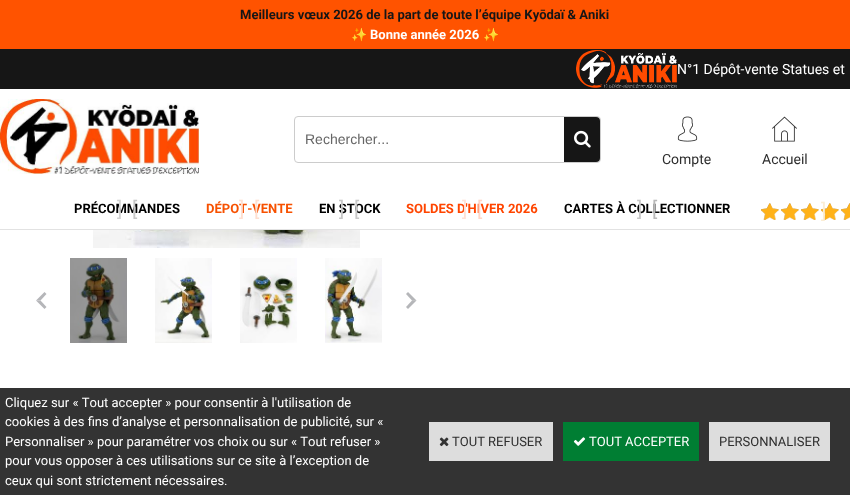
async function draw(canvas) {
	canvas.width = 850;
	canvas.height = 495;
	const c = canvas.getContext('2d');
	c.miterLimit = 4;
	c.fontKerning = 'none';
	async function loadImage(src) {
		const img = new Image();
		img.src = src;
		await img.decode();
		return img;
	}

	c.fillStyle = '#fff';
	c.fillRect(0, 0, 850, 495);
	c.fillStyle = '#ff5300';
	c.fillRect(0, 0, 850, 49);
	c.font = 'bold 13px Roboto';
	c.fillStyle = '#161616';
	c.fillText('Meilleurs vœux 2026 de la part de toute l’équipe Kyōdaï & Aniki', 240, 19);
	c.font = '13px Noto Color Emoji';
	c.fillStyle = '#fff';
	c.fillText('✨', 351, 39);
	c.font = 'bold 13px Roboto';
	c.fillText('Bonne année 2026', 370, 39);
	c.font = '13px Noto Color Emoji';
	c.fillText('✨', 483, 39);
	c.fillStyle = '#161616';
	c.fillRect(0, 49, 850, 40);
	c.fillStyle = '#e2e2e2';
	c.fillRect(0, 229, 850, 1);
	c.drawImage(await loadImage('img1.png'), 576, 50, 101, 38);
	c.font = '14px Roboto';
	c.fillStyle = '#fff';
	c.fillText('N°1 Dépôt-vente Statues et', 677, 74);
	c.drawImage(await loadImage('img2.png'), 0, 99, 199, 75);
	c.beginPath();
	c.roundRect(294.5, 116.5, 306, 46, 3.5);
	c.strokeStyle = '#ccc';
	c.stroke();
	c.font = '14px Liberation Sans';
	c.fillStyle = '#666';
	c.fillText('Rechercher...', 305, 144);
	c.fillStyle = '#161616';
	c.beginPath();
	c.roundRect(564, 117, 36, 45, [0, 4, 4, 0]);
	c.fill();
	c.drawImage(await loadImage('img3.png'), 574, 130, 17, 18);
	c.drawImage(await loadImage('img4.png'), 677, 116, 21, 26);
	c.font = '14px Roboto';
	c.fillStyle = '#2e2e2e';
	c.fillText('Compte', 662, 164);
	c.drawImage(await loadImage('img5.png'), 772, 116, 25, 26);
	c.fillText('Accueil', 762, 164);
	c.font = 'bold 13px Roboto';
	c.fillStyle = '#000';
	c.fillText('PRÉCOMMANDES', 74, 213);
	c.font = '20px Roboto';
	c.fillStyle = '#d3d3d3';
	c.fillText(']', 117, 216);
	c.fillStyle = '#c7c7c7';
	c.fillText('[', 132, 216);
	c.font = 'bold 13px Roboto';
	c.fillStyle = '#f75100';
	c.fillText('DÉPOT-VENTE', 206, 213);
	c.font = '20px Roboto';
	c.fillStyle = '#fedfd0';
	c.fillText(']', 239, 216);
	c.fillText('[', 254, 216);
	c.font = 'bold 13px Roboto';
	c.fillStyle = '#000';
	c.fillText('EN STOCK', 319, 213);
	c.font = '20px Roboto';
	c.fillStyle = '#c7c7c7';
	c.fillText(']', 339, 216);
	c.fillText('[', 354, 216);
	c.font = 'bold 13px Roboto';
	c.fillStyle = '#ff4500';
	c.fillText('SOLDES D\'HIVER 2026', 406, 213);
	c.font = '20px Roboto';
	c.fillStyle = '#ffe1d6';
	c.fillText(']', 462, 216);
	c.fillStyle = '#ffd6c7';
	c.fillText('[', 477, 216);
	c.font = 'bold 13px Roboto';
	c.fillStyle = '#000';
	c.fillText('CARTES À COLLECTIONNER', 564, 213);
	c.font = '20px Roboto';
	c.fillStyle = '#c7c7c7';
	c.fillText(']', 637, 216);
	c.fillStyle = '#b9b9b9';
	c.fillText('[', 652, 216);
	c.drawImage(await loadImage('img6.png'), 761, 203, 89, 17);
	c.drawImage(await loadImage('img7.png'), 761, 203, 89, 17);
	c.fillStyle = '#fbedd3';
	c.fillText(']', 821, 218);
	c.drawImage(await loadImage('img8.png'), 93, 230, 267, 18);
	c.fillStyle = '#b5b6b9';
	c.beginPath();
	c.moveTo(36, 300.5);
	c.lineTo(44.5, 292);
	c.lineTo(46.5, 294);
	c.lineTo(40.5, 300.5);
	c.closePath();
	c.fill();
	c.beginPath();
	c.moveTo(44.5, 309);
	c.lineTo(36, 300.5);
	c.lineTo(40.5, 300.5);
	c.lineTo(46.5, 307);
	c.closePath();
	c.fill();
	c.drawImage(await loadImage('img9.png'), 70, 258, 57, 85);
	c.drawImage(await loadImage('img10.png'), 155, 258, 57, 85);
	c.drawImage(await loadImage('img11.png'), 240, 258, 57, 85);
	c.drawImage(await loadImage('img12.png'), 325, 258, 57, 85);
	c.beginPath();
	c.moveTo(416.5, 300.5);
	c.lineTo(408, 309);
	c.lineTo(406, 307);
	c.lineTo(412, 300.5);
	c.closePath();
	c.fill();
	c.fillStyle = '#83858b99';
	c.beginPath();
	c.moveTo(408, 292);
	c.lineTo(416.5, 300.5);
	c.lineTo(412, 300.5);
	c.lineTo(406, 294);
	c.closePath();
	c.fill();
	c.fillStyle = '#333';
	c.fillRect(0, 388, 850, 107);
	c.font = '13px Roboto';
	c.fillStyle = '#fff';
	for (const [text, x, y] of [
		['Cliquez sur « Tout accepter » pour consentir à l\'utilisation de', 5, 407],
		['cookies à des fins d’analyse et personnalisation de publicité, sur «', 5, 426],
		['Personnaliser » pour paramétrer vos choix ou sur « Tout refuser »', 5, 446],
		['pour vous opposer à ces utilisations sur ce site à l’exception de', 5, 465],
		['ceux qui sont strictement nécessaires.', 5, 485],
	]) {
		c.fillText(text, x, y);
	}
	c.fillStyle = '#ddd';
	c.fillRect(429, 422, 124, 39);
	c.drawImage(await loadImage('img13.png'), 439, 437, 10, 10);
	c.fillStyle = '#2e2e2e';
	c.fillText('TOUT REFUSER', 452, 446);
	c.fillStyle = '#007e33';
	c.fillRect(563, 422, 136, 39);
	c.drawImage(await loadImage('img14.png'), 573, 437, 13, 9);
	c.fillStyle = '#fff';
	c.fillText('TOUT ACCEPTER', 589, 446);
	c.fillStyle = '#ddd';
	c.fillRect(709, 422, 121, 39);
	c.fillStyle = '#2e2e2e';
	c.fillText('PERSONNALISER', 719, 446);
}

draw(document.querySelector('canvas'));
